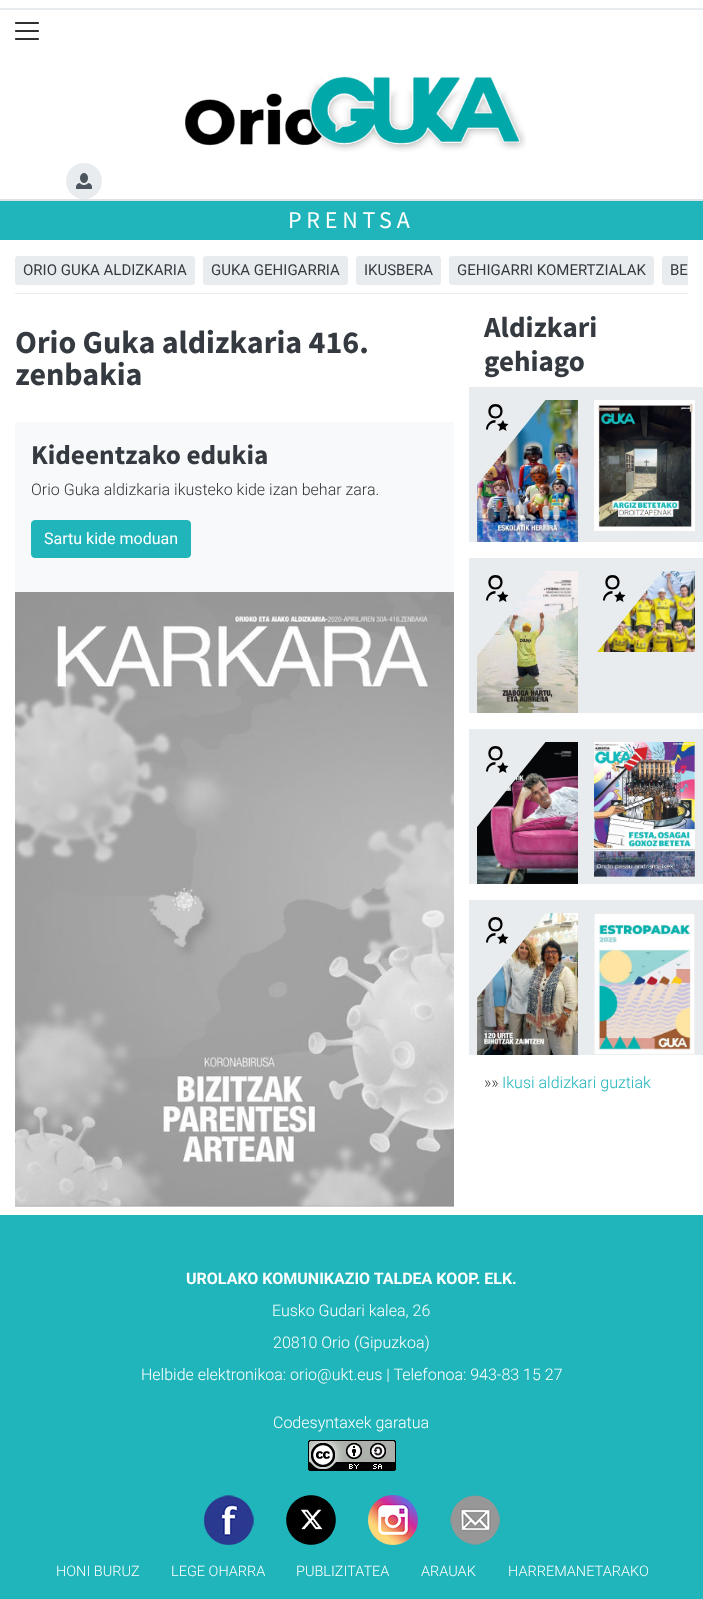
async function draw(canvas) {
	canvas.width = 703;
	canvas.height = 1599;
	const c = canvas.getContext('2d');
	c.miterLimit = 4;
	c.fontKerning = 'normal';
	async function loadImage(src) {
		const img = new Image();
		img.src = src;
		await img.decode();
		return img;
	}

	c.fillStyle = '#fff';
	c.fillRect(0, 0, 703, 1599);
	c.fillStyle = '#e9ecef';
	c.fillRect(0, 8, 703, 2);
	c.drawImage(await loadImage('img1.png'), 15, 22, 24, 18);
	c.drawImage(await loadImage('img2.png'), 185, 76, 341, 76);
	c.beginPath();
	c.arc(84, 181, 18, 0, 2 * Math.PI);
	c.fill();
	c.drawImage(await loadImage('img3.png'), 76, 173, 16, 16);
	c.fillStyle = '#dee2e6';
	c.fillRect(0, 199, 703, 2);
	c.fillStyle = '#20b5ba';
	c.fillRect(0, 201, 703, 39);
	c.letterSpacing = '4.75px';
	c.font = '24px Source Sans Pro';
	c.fillStyle = '#fff';
	c.fillText('PRENTSA', 288, 228);
	c.fillStyle = '#e9ecef';
	c.fillRect(15, 293, 673, 1);
	c.beginPath();
	c.roundRect(15, 256, 180, 29, 3);
	c.fill();
	c.letterSpacing = '0px';
	c.font = '15px Roboto';
	c.fillStyle = '#343a40';
	c.fillText('ORIO GUKA ALDIZKARIA', 23, 275);
	c.fillStyle = '#e9ecef';
	c.beginPath();
	c.roundRect(203, 256, 145, 29, 3);
	c.fill();
	c.fillStyle = '#343a40';
	c.fillText('GUKA GEHIGARRIA', 211, 275);
	c.fillStyle = '#e9ecef';
	c.beginPath();
	c.roundRect(356, 256, 85, 29, 3);
	c.fill();
	c.fillStyle = '#343a40';
	c.fillText('IKUSBERA', 364, 275);
	c.fillStyle = '#e9ecef';
	c.beginPath();
	c.roundRect(449, 256, 205, 29, 3);
	c.fill();
	c.fillStyle = '#343a40';
	c.fillText('GEHIGARRI KOMERTZIALAK', 457, 275);
	c.fillStyle = '#e9ecef';
	c.beginPath();
	c.roundRect(662, 256, 26, 29, [3, 0, 0, 3]);
	c.fill();
	c.fillStyle = '#343a40';
	c.fillText('BE', 670, 275);
	c.font = 'bold 32px Source Sans Pro';
	c.fillText('Orio Guka aldizkaria 416.', 15, 353);
	c.fillText('zenbakia', 15, 385);
	c.fillStyle = '#f8f9fa';
	c.fillRect(15, 422, 439, 170);
	c.font = 'bold 27.25px Source Sans Pro';
	c.fillStyle = '#343a40';
	c.fillText('Kideentzako edukia', 31, 464);
	c.font = '300 16px Roboto';
	c.fillStyle = '#333';
	c.fillText('Orio Guka aldizkaria ikusteko kide izan behar zara.', 31, 495);
	c.fillStyle = '#20b5ba';
	c.beginPath();
	c.roundRect(31.5, 520.5, 159, 37, 3.5);
	c.fill();
	c.strokeStyle = '#20b5ba';
	c.stroke();
	c.font = '16px Roboto';
	c.fillStyle = '#fff';
	c.fillText('Sartu kide moduan', 44, 544);
	c.drawImage(await loadImage('img4.png'), 15, 592, 439, 615);
	c.font = 'bold 29px Source Sans Pro';
	c.fillStyle = '#343a40';
	c.fillText('Aldizkari', 484, 337);
	c.fillText('gehiago', 484, 371);
	c.fillStyle = '#e9ecef';
	c.fillRect(469, 387, 234, 155);
	c.drawImage(await loadImage('img5.png'), 477, 400, 101, 142);
	c.beginPath();
	c.moveTo(469, 387);
	c.lineTo(556, 387);
	c.lineTo(469, 495);
	c.closePath();
	c.fill();
	c.fillStyle = '#000';
	c.beginPath();
	c.moveTo(495.5, 420);
	c.lineTo(495.5, 422.5);
	c.bezierCurveTo(491.5, 422.5, 488, 425.5, 488, 429.5);
	c.lineTo(486, 429.5);
	c.bezierCurveTo(486, 424.5, 490, 420, 495.5, 420);
	c.closePath();
	c.moveTo(495.5, 418.5);
	c.bezierCurveTo(486, 418.5, 486, 404, 495.5, 404);
	c.bezierCurveTo(505, 404, 505, 418.5, 495.5, 418.5);
	c.closePath();
	c.moveTo(495.5, 416.5);
	c.bezierCurveTo(502, 416.5, 502, 406.5, 495.5, 406.5);
	c.bezierCurveTo(489, 406.5, 489, 416.5, 495.5, 416.5);
	c.closePath();
	c.moveTo(503, 429);
	c.lineTo(499, 431);
	c.lineTo(500, 427);
	c.lineTo(497, 424);
	c.lineTo(501, 423.5);
	c.lineTo(503, 420);
	c.lineTo(504.5, 423.5);
	c.lineTo(508.5, 424);
	c.lineTo(505.5, 427);
	c.lineTo(506.5, 431);
	c.closePath();
	c.fill();
	c.drawImage(await loadImage('img6.png'), 594, 400, 101, 131);
	c.fillStyle = '#e9ecef';
	c.fillRect(469, 558, 234, 155);
	c.drawImage(await loadImage('img7.png'), 477, 571, 101, 142);
	c.beginPath();
	c.moveTo(469, 558);
	c.lineTo(556, 558);
	c.lineTo(469, 666);
	c.closePath();
	c.fill();
	c.fillStyle = '#000';
	c.beginPath();
	c.moveTo(495.5, 591);
	c.lineTo(495.5, 593.5);
	c.bezierCurveTo(491.5, 593.5, 488, 596.5, 488, 600.5);
	c.lineTo(486, 600.5);
	c.bezierCurveTo(486, 595.5, 490, 591, 495.5, 591);
	c.closePath();
	c.moveTo(495.5, 589.5);
	c.bezierCurveTo(486, 589.5, 486, 575, 495.5, 575);
	c.bezierCurveTo(505, 575, 505, 589.5, 495.5, 589.5);
	c.closePath();
	c.moveTo(495.5, 587.5);
	c.bezierCurveTo(502, 587.5, 502, 577.5, 495.5, 577.5);
	c.bezierCurveTo(489, 577.5, 489, 587.5, 495.5, 587.5);
	c.closePath();
	c.moveTo(503, 600);
	c.lineTo(499, 602);
	c.lineTo(500, 598);
	c.lineTo(497, 595);
	c.lineTo(501, 594.5);
	c.lineTo(503, 591);
	c.lineTo(504.5, 594.5);
	c.lineTo(508.5, 595);
	c.lineTo(505.5, 598);
	c.lineTo(506.5, 602);
	c.closePath();
	c.fill();
	c.drawImage(await loadImage('img8.png'), 597, 571, 98, 81);
	c.fillStyle = '#e9ecef';
	c.beginPath();
	c.moveTo(586, 558);
	c.lineTo(673, 558);
	c.lineTo(586, 666);
	c.closePath();
	c.fill();
	c.fillStyle = '#000';
	c.beginPath();
	c.moveTo(612.5, 591);
	c.lineTo(612.5, 593.5);
	c.bezierCurveTo(608.5, 593.5, 605, 596.5, 605, 600.5);
	c.lineTo(603, 600.5);
	c.bezierCurveTo(603, 595.5, 607, 591, 612.5, 591);
	c.closePath();
	c.moveTo(612.5, 589.5);
	c.bezierCurveTo(603, 589.5, 603, 575, 612.5, 575);
	c.bezierCurveTo(622, 575, 622, 589.5, 612.5, 589.5);
	c.closePath();
	c.moveTo(612.5, 587.5);
	c.bezierCurveTo(619, 587.5, 619, 577.5, 612.5, 577.5);
	c.bezierCurveTo(606, 577.5, 606, 587.5, 612.5, 587.5);
	c.closePath();
	c.moveTo(620, 600);
	c.lineTo(616, 602);
	c.lineTo(617, 598);
	c.lineTo(614, 595);
	c.lineTo(618, 594.5);
	c.lineTo(620, 591);
	c.lineTo(621.5, 594.5);
	c.lineTo(625.5, 595);
	c.lineTo(622.5, 598);
	c.lineTo(623.5, 602);
	c.closePath();
	c.fill();
	c.fillStyle = '#e9ecef';
	c.fillRect(469, 729, 234, 155);
	c.drawImage(await loadImage('img9.png'), 477, 742, 101, 142);
	c.beginPath();
	c.moveTo(469, 729);
	c.lineTo(556, 729);
	c.lineTo(469, 837);
	c.closePath();
	c.fill();
	c.fillStyle = '#000';
	c.beginPath();
	c.moveTo(495.5, 762);
	c.lineTo(495.5, 764.5);
	c.bezierCurveTo(491.5, 764.5, 488, 767.5, 488, 771.5);
	c.lineTo(486, 771.5);
	c.bezierCurveTo(486, 766.5, 490, 762, 495.5, 762);
	c.closePath();
	c.moveTo(495.5, 760.5);
	c.bezierCurveTo(486, 760.5, 486, 746, 495.5, 746);
	c.bezierCurveTo(505, 746, 505, 760.5, 495.5, 760.5);
	c.closePath();
	c.moveTo(495.5, 758.5);
	c.bezierCurveTo(502, 758.5, 502, 748.5, 495.5, 748.5);
	c.bezierCurveTo(489, 748.5, 489, 758.5, 495.5, 758.5);
	c.closePath();
	c.moveTo(503, 771);
	c.lineTo(499, 773);
	c.lineTo(500, 769);
	c.lineTo(497, 766);
	c.lineTo(501, 765.5);
	c.lineTo(503, 762);
	c.lineTo(504.5, 765.5);
	c.lineTo(508.5, 766);
	c.lineTo(505.5, 769);
	c.lineTo(506.5, 773);
	c.closePath();
	c.fill();
	c.drawImage(await loadImage('img10.png'), 594, 742, 101, 135);
	c.fillStyle = '#e9ecef';
	c.fillRect(469, 900, 234, 155);
	c.drawImage(await loadImage('img11.png'), 477, 913, 101, 142);
	c.beginPath();
	c.moveTo(469, 900);
	c.lineTo(556, 900);
	c.lineTo(469, 1008);
	c.closePath();
	c.fill();
	c.fillStyle = '#000';
	c.beginPath();
	c.moveTo(495.5, 933);
	c.lineTo(495.5, 935.5);
	c.bezierCurveTo(491.5, 935.5, 488, 938.5, 488, 942.5);
	c.lineTo(486, 942.5);
	c.bezierCurveTo(486, 937.5, 490, 933, 495.5, 933);
	c.closePath();
	c.moveTo(495.5, 931.5);
	c.bezierCurveTo(486, 931.5, 486, 917, 495.5, 917);
	c.bezierCurveTo(505, 917, 505, 931.5, 495.5, 931.5);
	c.closePath();
	c.moveTo(495.5, 929.5);
	c.bezierCurveTo(502, 929.5, 502, 919.5, 495.5, 919.5);
	c.bezierCurveTo(489, 919.5, 489, 929.5, 495.5, 929.5);
	c.closePath();
	c.moveTo(503, 942);
	c.lineTo(499, 944);
	c.lineTo(500, 940);
	c.lineTo(497, 937);
	c.lineTo(501, 936.5);
	c.lineTo(503, 933);
	c.lineTo(504.5, 936.5);
	c.lineTo(508.5, 937);
	c.lineTo(505.5, 940);
	c.lineTo(506.5, 944);
	c.closePath();
	c.fill();
	c.drawImage(await loadImage('img12.png'), 594, 913, 101, 142);
	c.font = '300 16px Roboto';
	c.fillStyle = '#333';
	c.fillText('»»', 484, 1088);
	c.fillStyle = '#20b5ba';
	c.fillText('Ikusi aldizkari guztiak', 502, 1088);
	c.fillRect(0, 1215, 703, 384);
	c.font = 'bold 16px Roboto';
	c.fillStyle = '#fff';
	c.fillText('UROLAKO KOMUNIKAZIO TALDEA KOOP. ELK.', 186, 1284);
	c.font = '300 16px Roboto';
	for (const [text, x, y] of [
		['Eusko Gudari kalea, 26', 272, 1316],
		['20810 Orio (Gipuzkoa)', 273, 1348],
		['Helbide elektronikoa: orio@ukt.eus | Telefonoa: 943-83 15 27', 141, 1380],
		['Codesyntaxek garatua', 273, 1428],
	]) {
		c.fillText(text, x, y);
	}
	c.drawImage(await loadImage('img13.png'), 308, 1440, 88, 31);
	c.drawImage(await loadImage('img14.png'), 204, 1495, 50, 50);
	c.drawImage(await loadImage('img15.png'), 286, 1495, 50, 50);
	c.drawImage(await loadImage('img16.png'), 368, 1495, 50, 50);
	c.drawImage(await loadImage('img17.png'), 450, 1495, 50, 50);
	c.font = '300 14.5px Roboto';
	for (const [text, x, y] of [
		['HONI BURUZ', 56, 1576],
		['LEGE OHARRA', 171, 1576],
		['PUBLIZITATEA', 296, 1576],
		['ARAUAK', 421, 1576],
		['HARREMANETARAKO', 508, 1576],
	]) {
		c.fillText(text, x, y);
	}
}

draw(document.querySelector('canvas'));
